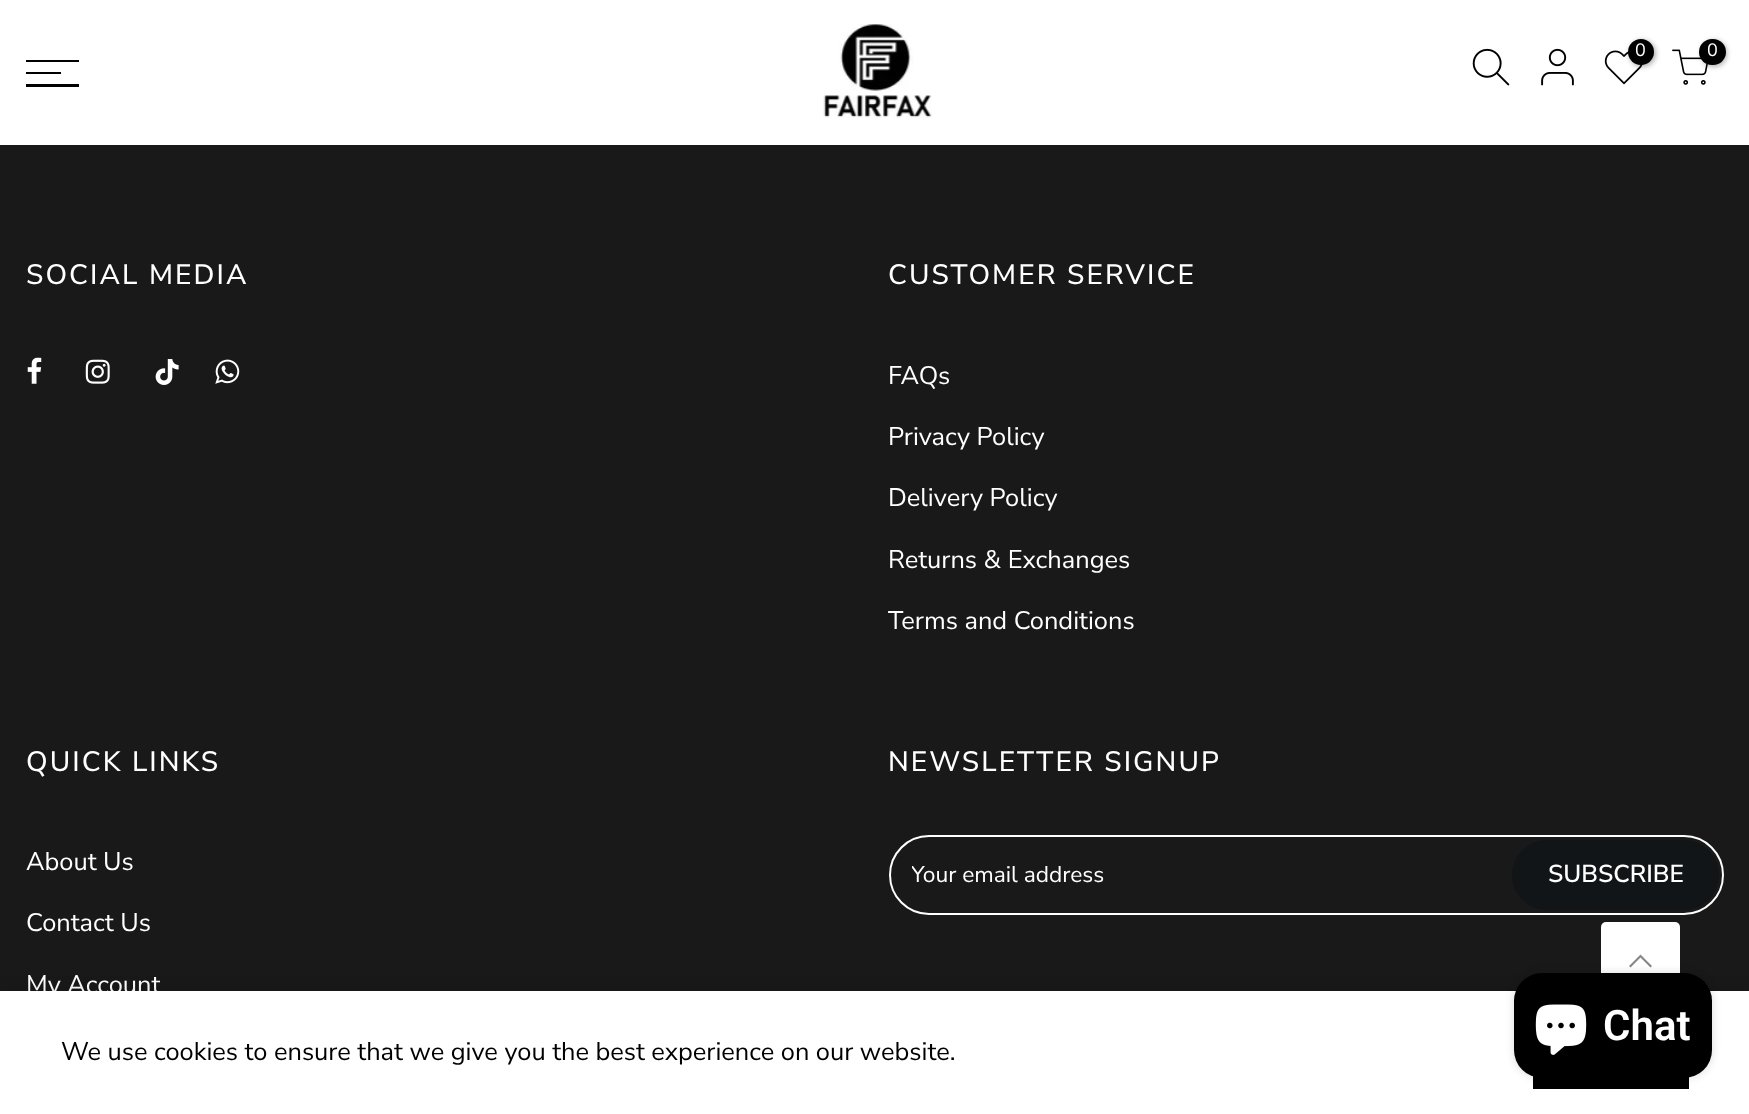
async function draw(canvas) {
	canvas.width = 1749;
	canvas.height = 1114;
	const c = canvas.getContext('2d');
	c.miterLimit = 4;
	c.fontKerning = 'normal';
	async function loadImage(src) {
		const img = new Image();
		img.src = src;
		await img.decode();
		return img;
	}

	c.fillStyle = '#191919';
	c.fillRect(0, 0, 1749, 1114);
	c.fillStyle = '#fff';
	c.fillRect(0, 0, 1749, 145);
	c.drawImage(await loadImage('img1.png'), 823, 24, 109, 94);
	c.drawImage(await loadImage('img2.png'), 1472, 48, 38, 38);
	c.drawImage(await loadImage('img3.png'), 1541, 48, 33, 38);
	c.drawImage(await loadImage('img4.png'), 1604, 50, 39, 35);
	c.fillStyle = '#0000004d';
	c.filter = 'blur(2.5px)';
	c.beginPath();
	c.roundRect(1629, 40, 27, 27, 13.5);
	c.fill();
	c.filter = 'none';
	c.fillStyle = '#000';
	c.beginPath();
	c.arc(1641, 52, 13, 0, 2 * Math.PI);
	c.fill();
	c.font = '18px Nunito Sans';
	c.fillStyle = '#fff';
	c.fillText('0', 1635, 56);
	c.drawImage(await loadImage('img5.png'), 1672, 49, 36, 36);
	c.fillStyle = '#0000004d';
	c.filter = 'blur(2.5px)';
	c.beginPath();
	c.roundRect(1701, 40, 26, 27, 13);
	c.fill();
	c.filter = 'none';
	c.fillStyle = '#000';
	c.beginPath();
	c.roundRect(1699, 39, 27, 26, 13);
	c.fill();
	c.fillStyle = '#fff';
	c.fillText('0', 1707, 56);
	for (const [x, y, w, h, color] of [
		[26, 60, 53, 2, '#000'],
		[26, 72, 35, 2, '#000'],
		[26, 84, 53, 3, '#000'],
	]) {
		c.fillStyle = color;
		c.fillRect(x, y, w, h);
	}
	c.letterSpacing = '2.1px';
	c.font = '500 28px Nunito Sans';
	c.fillStyle = '#fff';
	c.fillText('SOCIAL MEDIA', 26, 284);
	c.drawImage(await loadImage('img6.png'), 27, 357, 15, 27);
	c.drawImage(await loadImage('img7.png'), 85, 359, 25, 25);
	c.drawImage(await loadImage('img8.png'), 155, 359, 24, 26);
	c.drawImage(await loadImage('img9.png'), 215, 359, 25, 25);
	c.fillText('CUSTOMER SERVICE', 888, 284);
	c.letterSpacing = '0px';
	c.font = '25.4px Nunito Sans';
	for (const [text, x, y] of [
		['FAQs', 888, 384],
		['Privacy Policy', 888, 445],
		['Delivery Policy', 888, 506],
		['Returns & Exchanges', 888, 568],
		['Terms and Conditions', 888, 629],
	]) {
		c.fillText(text, x, y);
	}
	c.letterSpacing = '2.1px';
	c.font = '500 28px Nunito Sans';
	c.fillText('QUICK LINKS', 26, 771);
	c.letterSpacing = '0px';
	c.font = '25.4px Nunito Sans';
	for (const [text, x, y] of [
		['About Us', 26, 870],
		['Contact Us', 26, 931],
		['My Account', 26, 993],
	]) {
		c.fillText(text, x, y);
	}
	c.letterSpacing = '2.1px';
	c.font = '500 28px Nunito Sans';
	c.fillText('NEWSLETTER SIGNUP', 888, 771);
	c.beginPath();
	c.roundRect(890, 836, 833, 78, 39);
	c.strokeStyle = '#fff';
	c.lineWidth = 2;
	c.stroke();
	c.save();
	c.beginPath();
	c.rect(912, 859, 583, 32);
	c.clip();
	c.letterSpacing = '0px';
	c.font = '22.75px Nunito Sans';
	c.fillText('Your email address', 911, 882);
	c.restore();
	c.fillStyle = '#111517';
	c.beginPath();
	c.roundRect(1512, 840, 207, 70, 35);
	c.fill();
	c.letterSpacing = '0px';
	c.font = '600 24.5px Nunito Sans';
	c.fillStyle = '#fff';
	c.fillText('SUBSCRIBE', 1548, 882);
	c.beginPath();
	c.roundRect(1601, 922, 79, 79, 5);
	c.fill();
	c.fillStyle = '#878787';
	c.beginPath();
	c.moveTo(1642, 956);
	c.lineTo(1640.5, 954.5);
	c.lineTo(1629, 966);
	c.lineTo(1630.5, 967.5);
	c.lineTo(1640.5, 957.5);
	c.lineTo(1650.5, 967.5);
	c.lineTo(1652, 966);
	c.closePath();
	c.fill();
	c.fillStyle = '#00000024';
	c.filter = 'blur(8px)';
	c.beginPath();
	c.rect(0, 991, 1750, 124);
	c.fill();
	c.filter = 'none';
	c.fillStyle = '#fff';
	c.fillRect(0, 991, 1749, 123);
	c.fillStyle = '#000';
	c.fillRect(1533, 1076, 156, 13);
	c.fillStyle = '#00000026';
	c.filter = 'blur(4.5px)';
	c.beginPath();
	c.roundRect(1514, 973, 198, 105, 28);
	c.fill();
	c.filter = 'none';
	c.fillStyle = '#000';
	c.beginPath();
	c.roundRect(1514, 973, 198, 105, 28);
	c.fill();
	c.drawImage(await loadImage('img10.png'), 1535, 1004, 52, 51);
	c.font = '600 42px Roboto';
	c.fillStyle = '#fff';
	c.fillText('Chat', 1603, 1040);
	c.font = '25.4px Nunito Sans';
	c.fillStyle = '#000';
	c.fillText('We use cookies to ensure that we give you the best experience on our website.', 61, 1060);
}

draw(document.querySelector('canvas'));
